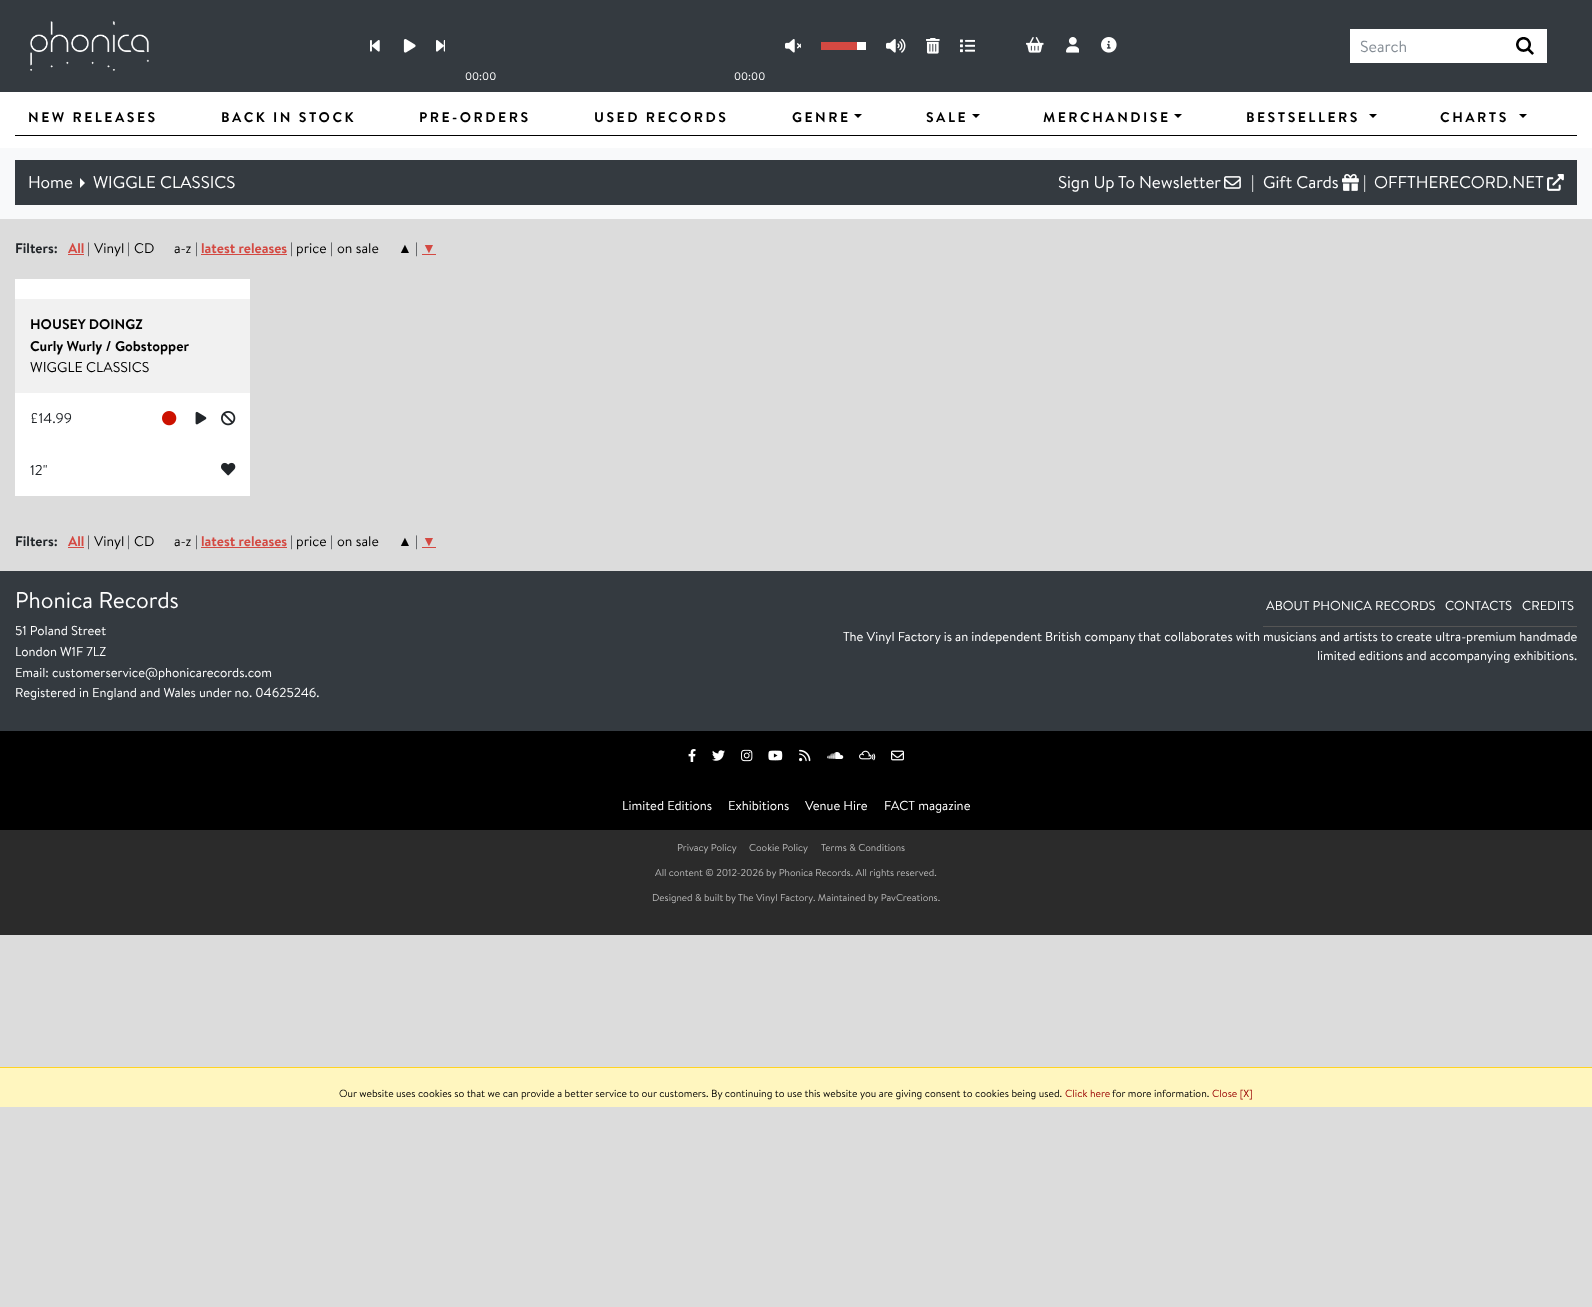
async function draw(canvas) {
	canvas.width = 1592;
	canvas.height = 1307;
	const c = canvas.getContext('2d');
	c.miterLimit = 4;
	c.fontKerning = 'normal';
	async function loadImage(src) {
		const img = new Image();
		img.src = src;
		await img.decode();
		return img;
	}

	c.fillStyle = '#dcdcdc';
	c.fillRect(0, 0, 1592, 1307);
	c.fillStyle = '#343a40';
	c.fillRect(0, 0, 1592, 92);
	c.drawImage(await loadImage('img1.png'), 30, 21, 119, 50);
	c.fillStyle = '#fff';
	c.fillRect(1350, 29, 197, 34);
	c.drawImage(await loadImage('img2.png'), 1516, 37, 18, 18);
	c.font = '16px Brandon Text';
	c.fillStyle = '#868e96';
	c.fillText('Search', 1360, 52);
	c.drawImage(await loadImage('img3.png'), 370, 40, 10, 12);
	c.drawImage(await loadImage('img4.png'), 403, 39, 13, 14);
	c.drawImage(await loadImage('img5.png'), 436, 40, 9, 12);
	c.drawImage(await loadImage('img6.png'), 785, 39, 16, 14);
	c.fillStyle = '#fff';
	c.fillRect(857, 42, 9, 8);
	c.fillStyle = '#d44942';
	c.fillRect(821, 42, 36, 8);
	c.drawImage(await loadImage('img7.png'), 886, 38, 20, 15);
	c.drawImage(await loadImage('img8.png'), 926, 38, 14, 16);
	c.drawImage(await loadImage('img9.png'), 960, 39, 15, 14);
	c.drawImage(await loadImage('img10.png'), 1026, 37, 18, 16);
	c.drawImage(await loadImage('img11.png'), 1066, 37, 13, 16);
	c.drawImage(await loadImage('img12.png'), 1101, 37, 16, 16);
	c.font = '11px Brandon Text';
	c.fillStyle = '#fff';
	c.fillText('00:00', 465, 80);
	c.fillText('00:00', 734, 80);
	c.fillRect(0, 92, 1592, 56);
	c.fillStyle = '#000';
	c.fillRect(15, 135, 1562, 1);
	c.letterSpacing = '2.5px';
	c.font = 'bold 14px Brandon Text';
	for (const [text, x, y] of [
		['NEW RELEASES', 28, 122],
		['BACK IN STOCK', 221, 122],
		['PRE-ORDERS', 419, 122],
		['USED RECORDS', 594, 122],
		['GENRE', 792, 122],
	]) {
		c.fillText(text, x, y);
	}
	c.beginPath();
	c.moveTo(854, 114);
	c.lineTo(862, 114);
	c.lineTo(858, 118);
	c.closePath();
	c.fill();
	c.fillText('SALE', 926, 122);
	c.beginPath();
	c.moveTo(972, 114);
	c.lineTo(980, 114);
	c.lineTo(976, 118);
	c.closePath();
	c.fill();
	c.fillText('MERCHANDISE', 1043, 122);
	c.beginPath();
	c.moveTo(1174, 114);
	c.lineTo(1182, 114);
	c.lineTo(1178, 118);
	c.closePath();
	c.fill();
	c.fillText('BESTSELLERS', 1246, 122);
	c.beginPath();
	c.moveTo(1369, 114);
	c.lineTo(1377, 114);
	c.lineTo(1373, 118);
	c.closePath();
	c.fill();
	c.fillText('CHARTS', 1440, 122);
	c.beginPath();
	c.moveTo(1519, 114);
	c.lineTo(1527, 114);
	c.lineTo(1523, 118);
	c.closePath();
	c.fill();
	c.fillStyle = '#f8f9fa';
	c.fillRect(0, 148, 1592, 71);
	c.fillStyle = '#343a40';
	c.fillRect(15, 160, 1562, 45);
	c.letterSpacing = '0px';
	c.font = '17px Brandon Text';
	c.fillStyle = '#fff';
	c.fillText('Home', 28, 188);
	c.beginPath();
	c.moveTo(80, 188);
	c.lineTo(80, 178);
	c.lineTo(85, 183);
	c.closePath();
	c.fill();
	c.fillText('WIGGLE CLASSICS', 93, 188);
	c.fillText('Sign Up To Newsletter', 1058, 188);
	c.drawImage(await loadImage('img13.png'), 1224, 176, 17, 13);
	c.fillText('|', 1251, 188);
	c.fillText('Gift Cards', 1263, 188);
	c.drawImage(await loadImage('img14.png'), 1342, 174, 17, 17);
	c.fillText('|', 1363, 188);
	c.fillText('OFFTHERECORD.NET', 1374, 188);
	c.drawImage(await loadImage('img15.png'), 1547, 174, 17, 17);
	c.font = 'bold 14px Brandon Text';
	c.fillStyle = '#212529';
	c.fillText('Filters:', 15, 253);
	c.fillStyle = '#d44942';
	c.fillText('All', 68, 253);
	c.fillRect(68, 254, 16, 1);
	c.font = '14px Brandon Text';
	c.fillStyle = '#212529';
	c.fillText('|', 87, 253);
	c.fillStyle = '#000';
	c.fillText('Vinyl', 94, 253);
	c.fillStyle = '#212529';
	c.fillText('|', 127, 253);
	c.fillStyle = '#000';
	c.fillText('CD', 134, 253);
	c.fillText('a-z', 174, 253);
	c.fillStyle = '#212529';
	c.fillText('|', 195, 253);
	c.font = 'bold 14px Brandon Text';
	c.fillStyle = '#d44942';
	c.fillText('latest releases', 201, 253);
	c.fillRect(201, 254, 86, 1);
	c.font = '14px Brandon Text';
	c.fillStyle = '#212529';
	c.fillText('|', 290, 253);
	c.fillStyle = '#000';
	c.fillText('price', 296, 253);
	c.fillStyle = '#212529';
	c.fillText('|', 330, 253);
	c.fillStyle = '#000';
	c.fillText('on sale', 337, 253);
	c.font = '14px Liberation Serif';
	c.fillText('▲', 398, 253);
	c.font = '14px Brandon Text';
	c.fillStyle = '#212529';
	c.fillText('|', 415, 253);
	c.font = 'bold 14px Liberation Serif';
	c.fillStyle = '#d44942';
	c.fillText('▼', 422, 253);
	for (const [x, y, w, h, color] of [
		[422, 254, 14, 1, '#d44942'],
		[15, 279, 235, 217, '#fff'],
		[15, 299, 235, 94, '#f1f1f1'],
	]) {
		c.fillStyle = color;
		c.fillRect(x, y, w, h);
	}
	c.font = 'bold 14px Brandon Text';
	c.fillStyle = '#000';
	c.fillText('HOUSEY DOINGZ', 30, 329);
	c.font = 'bold 14.25px Brandon Text';
	c.fillText('Curly Wurly / Gobstopper', 30, 351);
	c.font = '14.25px Brandon Text';
	c.fillText('WIGGLE CLASSICS', 30, 372);
	c.fillStyle = '#212529';
	c.fillText('£14.99', 30, 423);
	c.drawImage(await loadImage('img16.png'), 162, 411, 15, 15);
	c.drawImage(await loadImage('img17.png'), 195, 411, 12, 14);
	c.drawImage(await loadImage('img18.png'), 221, 411, 15, 15);
	c.fillText('12"', 30, 475);
	c.drawImage(await loadImage('img19.png'), 221, 462, 15, 14);
	c.font = 'bold 14px Brandon Text';
	c.fillText('Filters:', 15, 546);
	c.fillStyle = '#d44942';
	c.fillText('All', 68, 546);
	c.fillRect(68, 547, 16, 1);
	c.font = '14px Brandon Text';
	c.fillStyle = '#212529';
	c.fillText('|', 87, 546);
	c.fillStyle = '#000';
	c.fillText('Vinyl', 94, 546);
	c.fillStyle = '#212529';
	c.fillText('|', 127, 546);
	c.fillStyle = '#000';
	c.fillText('CD', 134, 546);
	c.fillText('a-z', 174, 546);
	c.fillStyle = '#212529';
	c.fillText('|', 195, 546);
	c.font = 'bold 14px Brandon Text';
	c.fillStyle = '#d44942';
	c.fillText('latest releases', 201, 546);
	c.fillRect(201, 547, 86, 1);
	c.font = '14px Brandon Text';
	c.fillStyle = '#212529';
	c.fillText('|', 290, 546);
	c.fillStyle = '#000';
	c.fillText('price', 296, 546);
	c.fillStyle = '#212529';
	c.fillText('|', 330, 546);
	c.fillStyle = '#000';
	c.fillText('on sale', 337, 546);
	c.font = '14px Liberation Serif';
	c.fillText('▲', 398, 546);
	c.font = '14px Brandon Text';
	c.fillStyle = '#212529';
	c.fillText('|', 415, 546);
	c.font = 'bold 14px Liberation Serif';
	c.fillStyle = '#d44942';
	c.fillText('▼', 422, 546);
	c.fillRect(422, 547, 14, 1);
	c.fillStyle = '#343a40';
	c.fillRect(0, 571, 1592, 160);
	c.font = '22.75px Brandon Text';
	c.fillStyle = '#fff';
	c.fillText('Phonica Records', 15, 608);
	c.font = '13px Brandon Text';
	for (const [text, x, y] of [
		['51 Poland Street', 15, 635],
		['London W1F 7LZ', 15, 656],
		['Email: customerservice@phonicarecords.com', 15, 677],
		['Registered in England and Wales under no. 04625246.', 15, 697],
	]) {
		c.fillText(text, x, y);
	}
	c.fillStyle = '#555';
	c.fillRect(1263, 626, 314, 1);
	c.fillStyle = '#fff';
	for (const [text, x, y] of [
		['ABOUT PHONICA RECORDS', 1266, 610],
		['CONTACTS', 1445, 610],
		['CREDITS', 1522, 610],
		['The Vinyl Factory is an independent British company that collaborates with musicians and artists to create ultra-premium handmade', 843, 641],
		['limited editions and accompanying exhibitions.', 1317, 660],
	]) {
		c.fillText(text, x, y);
	}
	c.fillStyle = '#000';
	c.fillRect(0, 731, 1592, 99);
	c.drawImage(await loadImage('img20.png'), 688, 749, 8, 13);
	c.drawImage(await loadImage('img21.png'), 712, 750, 13, 11);
	c.drawImage(await loadImage('img22.png'), 741, 749, 12, 13);
	c.drawImage(await loadImage('img23.png'), 768, 750, 15, 11);
	c.drawImage(await loadImage('img24.png'), 799, 749, 12, 13);
	c.drawImage(await loadImage('img25.png'), 827, 752, 17, 7);
	c.drawImage(await loadImage('img26.png'), 859, 750, 17, 11);
	c.drawImage(await loadImage('img27.png'), 891, 750, 13, 11);
	c.fillStyle = '#fff';
	for (const [text, x, y] of [
		['Limited Editions', 622, 810],
		['Exhibitions', 728, 810],
		['Venue Hire', 805, 810],
		['FACT magazine', 884, 810],
	]) {
		c.fillText(text, x, y);
	}
	c.fillStyle = '#2b2b2b';
	c.fillRect(0, 830, 1592, 105);
	c.font = '10px Brandon Text';
	c.fillStyle = '#b6b6b6';
	for (const [text, x, y] of [
		['Privacy Policy', 677, 851],
		['Cookie Policy', 749, 851],
		['Terms & Conditions', 821, 851],
		['All content © 2012-2026 by Phonica Records. All rights reserved.', 655, 876],
		['Designed & built by The Vinyl Factory', 652, 901],
		['. Maintained by PavCreations.', 813, 901],
	]) {
		c.fillText(text, x, y);
	}
	c.fillStyle = '#fff6bf';
	c.fillRect(0, 1068, 1592, 39);
	c.fillStyle = '#ffd324';
	c.fillRect(0, 1067, 1592, 1);
	c.font = '10.4px Brandon Text';
	c.fillStyle = '#000';
	c.fillText('Our website uses cookies so that we can provide a better service to our customers. By continuing to use this website you are giving consent to cookies being used.', 339, 1097);
	c.fillStyle = '#900';
	c.fillText('Click here', 1065, 1097);
	c.fillStyle = '#000';
	c.fillText('for more information.', 1112, 1097);
	c.fillStyle = '#900';
	c.fillText('Close [X]', 1212, 1097);
}

draw(document.querySelector('canvas'));
